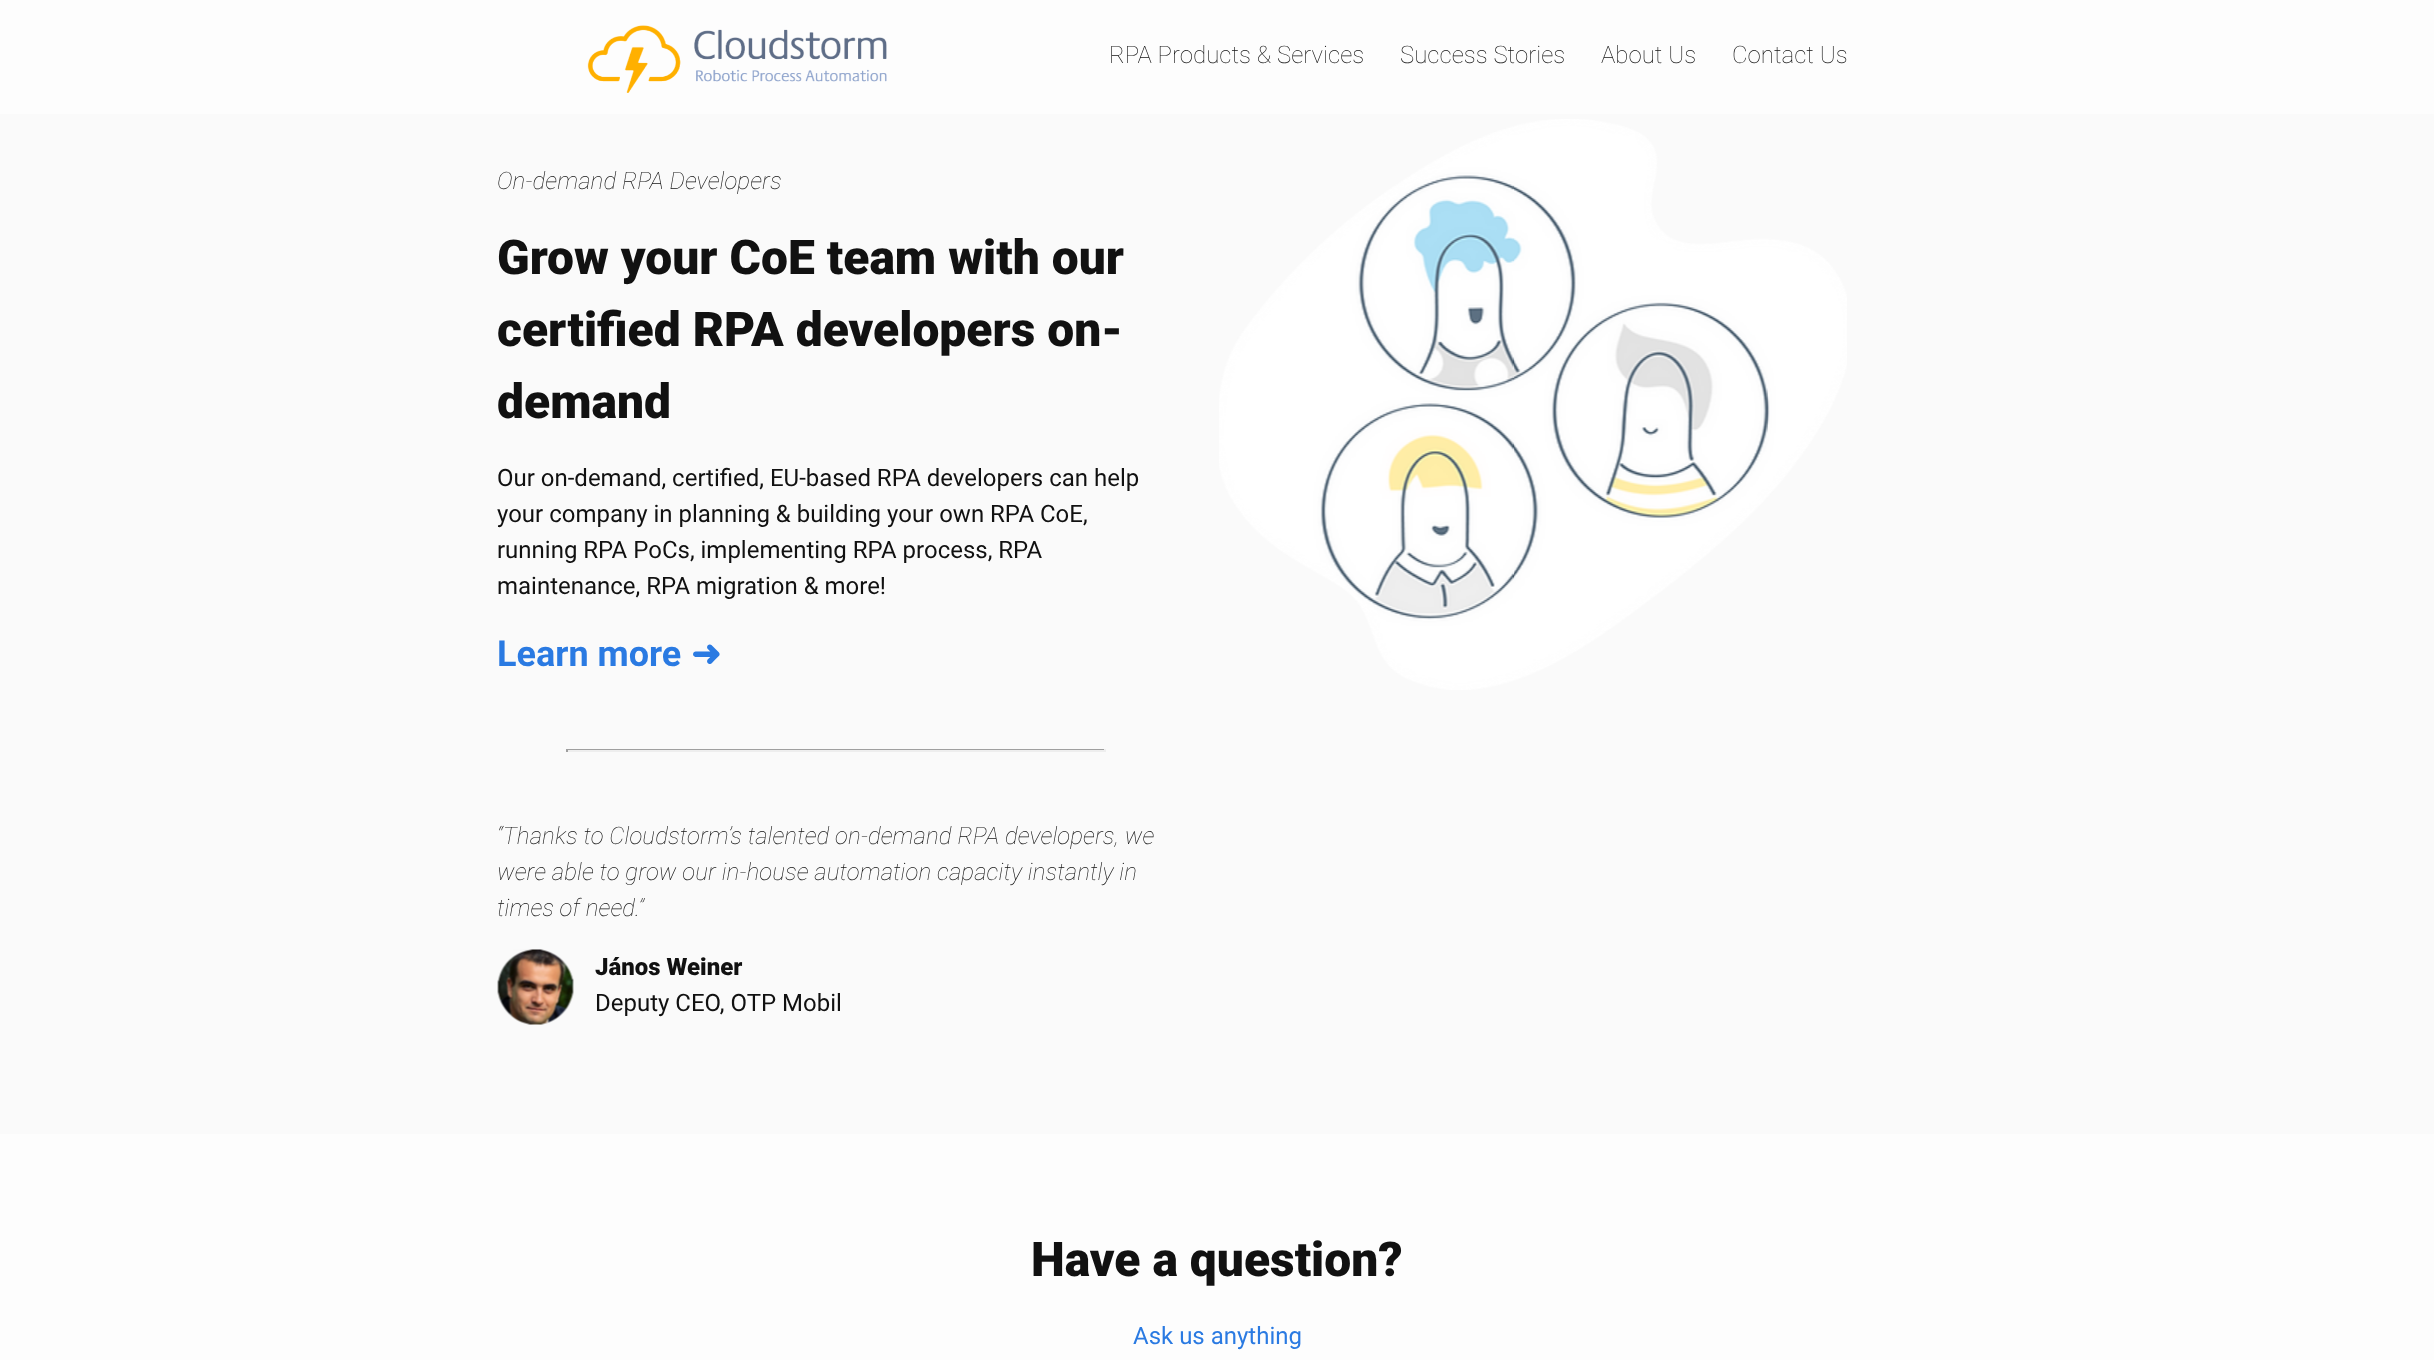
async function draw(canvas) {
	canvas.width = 2434;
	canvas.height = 1360;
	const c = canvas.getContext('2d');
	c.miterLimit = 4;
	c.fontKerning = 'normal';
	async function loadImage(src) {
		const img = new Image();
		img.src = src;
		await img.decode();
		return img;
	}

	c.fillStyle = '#fdfdfd';
	c.fillRect(0, 0, 2434, 1360);
	c.drawImage(await loadImage('img1.png'), 587, 25, 300, 68);
	c.font = '100 24px Roboto';
	c.fillStyle = '#111';
	for (const [text, x, y] of [
		['RPA Products & Services', 1109, 63],
		['Success Stories', 1400, 63],
		['About Us', 1601, 63],
		['Contact Us', 1732, 63],
	]) {
		c.fillText(text, x, y);
	}
	c.fillStyle = '#fafafa';
	c.fillRect(0, 114, 2434, 1020);
	c.font = 'italic 100 24px Roboto';
	c.fillStyle = '#111';
	c.fillText('On-demand RPA Developers', 497, 189);
	c.font = '900 48px Roboto';
	for (const [text, x, y] of [
		['Grow your CoE team with our', 497, 274],
		['certified RPA developers on-', 497, 346],
		['demand', 497, 418],
	]) {
		c.fillText(text, x, y);
	}
	c.font = '24px Roboto';
	for (const [text, x, y] of [
		['Our on-demand, certified, EU-based RPA developers can help', 497, 486],
		['your company in planning & building your own RPA CoE,', 497, 522],
		['running RPA PoCs, implementing RPA process, RPA', 497, 558],
		['maintenance, RPA migration & more!', 497, 594],
	]) {
		c.fillText(text, x, y);
	}
	c.font = 'bold 36px Roboto';
	c.fillStyle = '#2a7ae2';
	c.fillText('Learn more', 497, 666);
	c.font = 'bold 36px DejaVu Sans';
	c.fillText('➜', 691, 666);
	for (const [x, y, w, h, color] of [
		[566, 749, 540, 1, '#9f9f9f'],
		[1104, 749, 2, 3, '#eee'],
		[566, 750, 540, 2, '#eee'],
		[566, 749, 2, 3, '#9f9f9f'],
	]) {
		c.fillStyle = color;
		c.fillRect(x, y, w, h);
	}
	c.font = 'italic 100 24px Roboto';
	c.fillStyle = '#111';
	for (const [text, x, y] of [
		['“Thanks to Cloudstorm’s talented on-demand RPA developers, we', 497, 844],
		['were able to grow our in-house automation capacity instantly in', 497, 880],
		['times of need.”', 497, 916],
	]) {
		c.fillText(text, x, y);
	}
	c.drawImage(await loadImage('img2.png'), 497, 949, 77, 76);
	c.font = '900 24px Roboto';
	c.fillText('János Weiner', 595, 975);
	c.font = '24px Roboto';
	c.fillText('Deputy CEO, OTP Mobil', 595, 1011);
	c.drawImage(await loadImage('img3.png'), 1219, 119, 628, 571);
	c.font = '900 48px Roboto';
	c.fillText('Have a question?', 1031, 1276);
	c.font = '24px Roboto';
	c.fillStyle = '#2a7ae2';
	c.fillText('Ask us anything', 1133, 1344);
}

draw(document.querySelector('canvas'));
